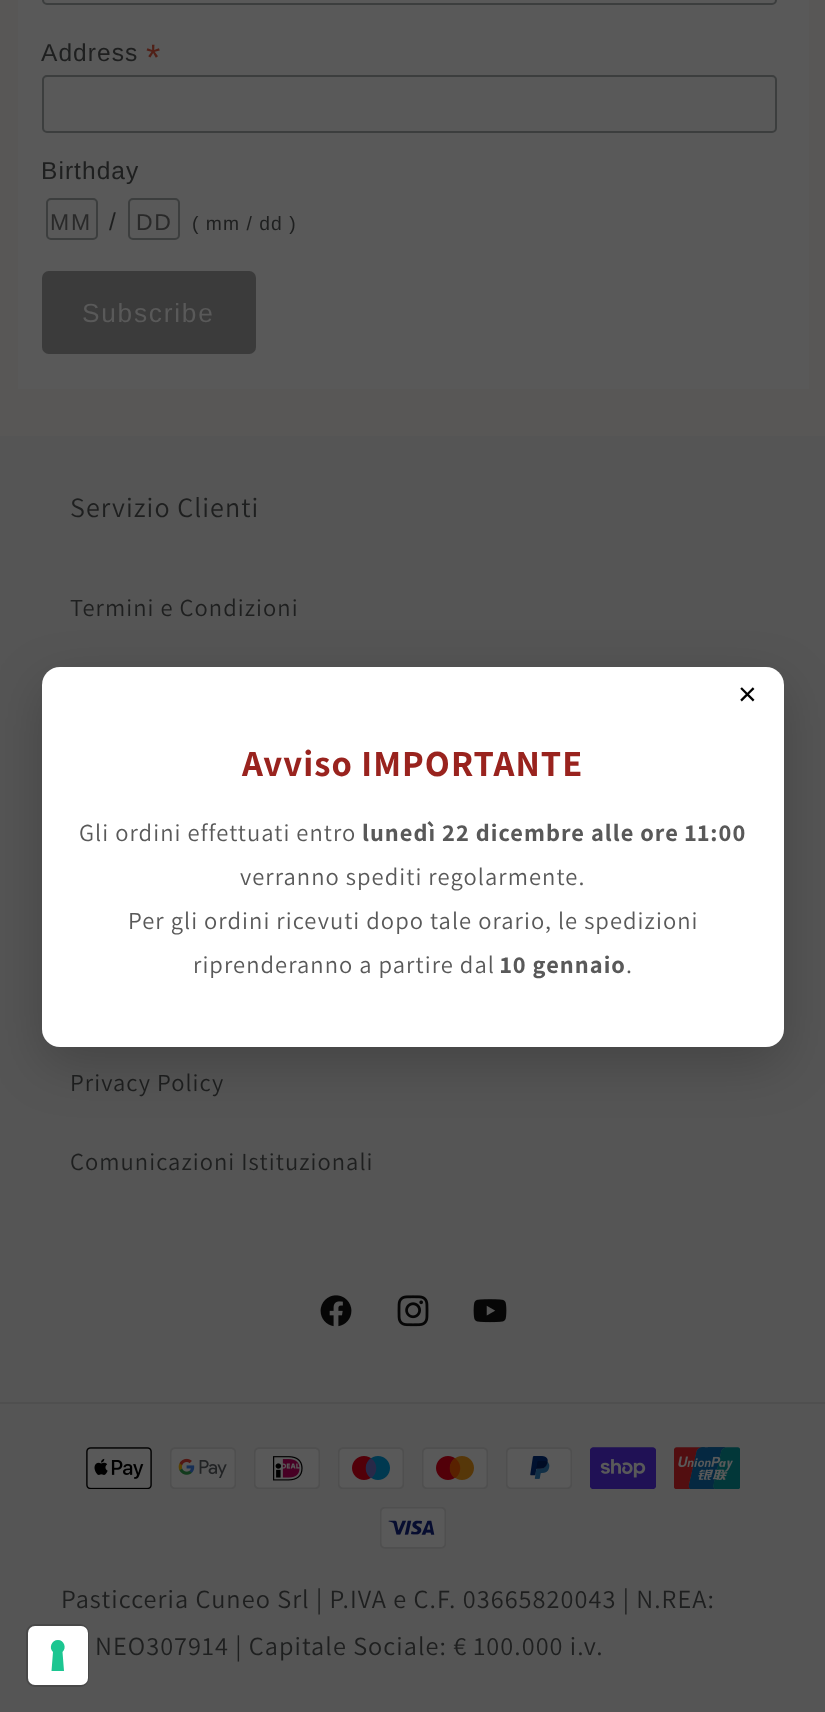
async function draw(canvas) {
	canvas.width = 825;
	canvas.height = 1712;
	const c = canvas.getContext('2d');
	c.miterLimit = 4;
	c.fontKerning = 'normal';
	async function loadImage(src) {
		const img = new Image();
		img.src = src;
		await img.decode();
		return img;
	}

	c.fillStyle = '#585756';
	c.fillRect(0, 0, 825, 1712);
	c.fillStyle = '#595959';
	c.fillRect(18, 0, 791, 389);
	c.beginPath();
	c.roundRect(43, -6, 733, 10, 4);
	c.strokeStyle = '#3c3e3e';
	c.lineWidth = 2;
	c.stroke();
	c.letterSpacing = '1.05px';
	c.font = '24.5px Liberation Sans';
	c.fillStyle = '#1e1f1f';
	c.fillText('Address', 41, 61);
	c.font = '36.75px Liberation Sans';
	c.fillStyle = '#512017';
	c.fillText('*', 146, 70);
	c.beginPath();
	c.roundRect(43, 76, 733, 56, 4);
	c.stroke();
	c.font = '24.5px Liberation Sans';
	c.fillStyle = '#1e1f1f';
	c.fillText('Birthday', 41, 179);
	c.beginPath();
	c.roundRect(47, 199, 50, 40, 4);
	c.stroke();
	c.letterSpacing = '1.75px';
	c.font = '23px Liberation Sans';
	c.fillStyle = '#292929';
	c.fillText('MM', 50, 230);
	c.letterSpacing = '1.05px';
	c.font = '24.5px Liberation Sans';
	c.fillStyle = '#1e1f1f';
	c.fillText('/', 109, 230);
	c.beginPath();
	c.roundRect(129, 199, 50, 40, 4);
	c.stroke();
	c.letterSpacing = '1.75px';
	c.font = '23px Liberation Sans';
	c.fillStyle = '#292929';
	c.fillText('DD', 136, 230);
	c.letterSpacing = '1.05px';
	c.font = '19.25px Liberation Sans';
	c.fillStyle = '#1e1f1f';
	c.fillText('( mm / dd )', 192, 230);
	c.fillStyle = '#3b3b3b';
	c.beginPath();
	c.roundRect(42, 271, 214, 83, 7);
	c.fill();
	c.letterSpacing = '1.75px';
	c.font = '26.25px Liberation Sans';
	c.fillStyle = '#595959';
	c.fillText('Subscribe', 82, 322);
	c.fillStyle = '#555';
	c.fillRect(0, 436, 825, 1276);
	c.letterSpacing = '1.05px';
	c.font = '28px Assistant';
	c.fillStyle = '#1e1f1f';
	c.fillText('Servizio Clienti', 70, 517);
	c.font = '24.5px Assistant';
	for (const [text, x, y] of [
		['Termini e Condizioni', 70, 616],
		['Privacy Policy', 70, 1091],
		['Comunicazioni Istituzionali', 70, 1170],
	]) {
		c.fillText(text, x, y);
	}
	c.drawImage(await loadImage('img1.png'), 320, 1295, 32, 32);
	c.drawImage(await loadImage('img2.png'), 397, 1295, 32, 32);
	c.drawImage(await loadImage('img3.png'), 473, 1299, 34, 24);
	c.fillStyle = '#4f4f4f';
	c.fillRect(0, 1402, 825, 2);
	c.drawImage(await loadImage('img4.png'), 86, 1447, 66, 42);
	c.drawImage(await loadImage('img5.png'), 170, 1447, 66, 42);
	c.drawImage(await loadImage('img6.png'), 254, 1447, 66, 42);
	c.drawImage(await loadImage('img7.png'), 338, 1447, 66, 42);
	c.drawImage(await loadImage('img8.png'), 422, 1447, 66, 42);
	c.drawImage(await loadImage('img9.png'), 506, 1447, 66, 42);
	c.drawImage(await loadImage('img10.png'), 590, 1447, 66, 42);
	c.drawImage(await loadImage('img11.png'), 674, 1447, 66, 42);
	c.drawImage(await loadImage('img12.png'), 380, 1507, 66, 42);
	c.font = '26.25px Assistant';
	c.fillStyle = '#1e1f1f';
	c.fillText('Pasticceria Cuneo Srl | P.IVA e C.F. 03665820043 | N.REA:', 61, 1608);
	c.fillText('NEO307914 | Capitale Sociale: € 100.000 i.v.', 95, 1655);
	c.fillStyle = '#00000033';
	c.filter = 'blur(26px)';
	c.beginPath();
	c.roundRect(42, 684, 742, 380, 18);
	c.fill();
	c.filter = 'none';
	c.fillStyle = '#fff';
	c.beginPath();
	c.roundRect(42, 667, 742, 380, 18);
	c.fill();
	c.letterSpacing = '0px';
	c.font = '32px Liberation Sans';
	c.fillStyle = '#000';
	c.fillText('×', 738, 705);
	c.letterSpacing = '1.05px';
	c.font = 'bold 36.75px Assistant';
	c.fillStyle = '#99231e';
	c.fillText('Avviso IMPORTANTE', 242, 776);
	c.font = '24.5px Assistant';
	c.fillStyle = '#595959';
	c.fillText('Gli ordini effettuati entro', 79, 841);
	c.font = 'bold 24.5px Assistant';
	c.fillText('lunedì 22 dicembre alle ore 11:00', 362, 841);
	c.font = '24.5px Assistant';
	for (const [text, x, y] of [
		['verranno spediti regolarmente.', 240, 885],
		['Per gli ordini ricevuti dopo tale orario, le spedizioni', 128, 929],
		['riprenderanno a partire dal', 193, 973],
	]) {
		c.fillText(text, x, y);
	}
	c.font = 'bold 24.5px Assistant';
	c.fillText('10 gennaio', 500, 973);
	c.font = '24.5px Assistant';
	c.fillText('.', 626, 973);
	c.beginPath();
	c.roundRect(27, 1625, 61, 61, 8);
	c.strokeStyle = '#00000026';
	c.stroke();
	c.fillStyle = '#fff';
	c.beginPath();
	c.roundRect(28, 1626, 60, 59, 7);
	c.fill();
	c.fillStyle = '#1cc691';
	c.beginPath();
	c.moveTo(58, 1640);
	c.bezierCurveTo(64, 1640, 67, 1648, 62.5, 1652);
	c.lineTo(64, 1671);
	c.lineTo(51.5, 1671);
	c.lineTo(53, 1652);
	c.bezierCurveTo(48.5, 1648, 51.5, 1640, 58, 1640);
	c.closePath();
	c.fill('evenodd');
}

draw(document.querySelector('canvas'));
